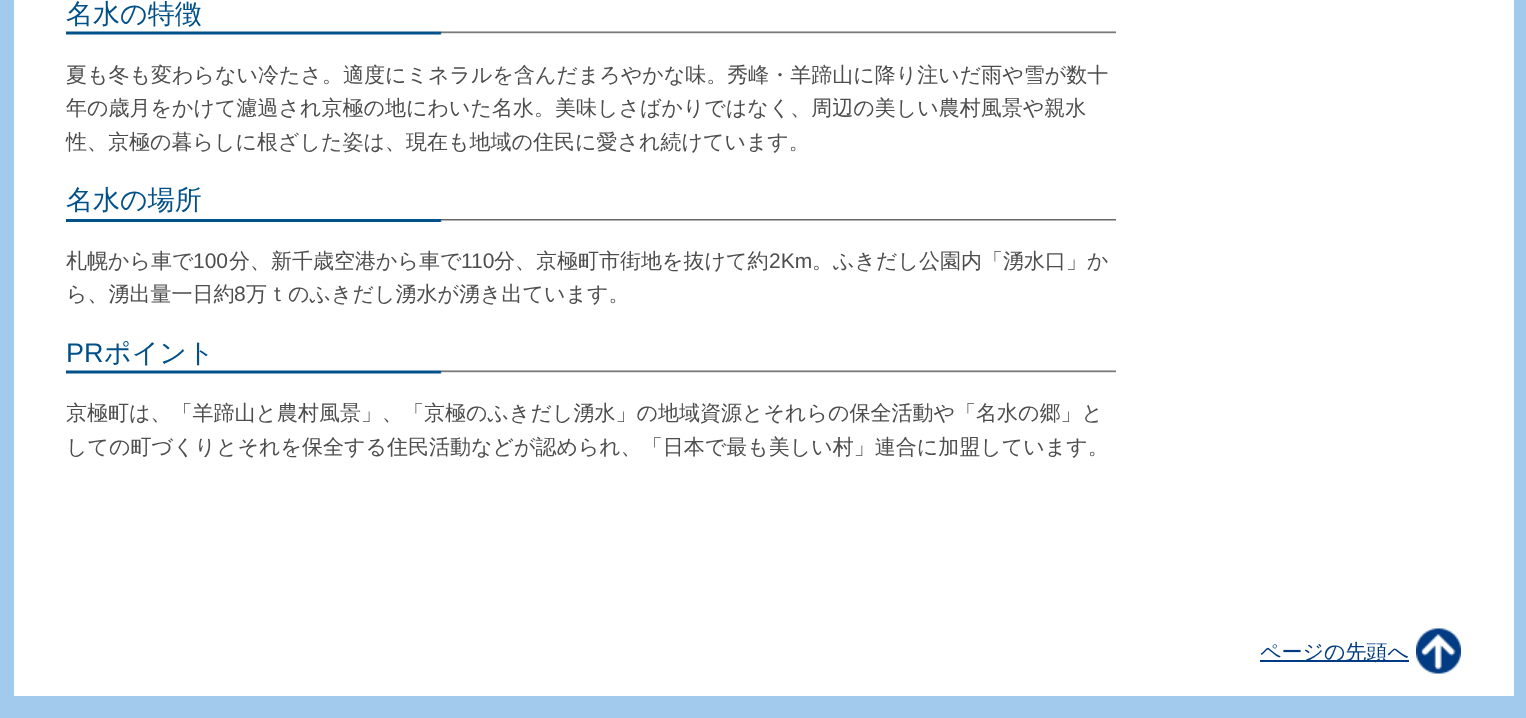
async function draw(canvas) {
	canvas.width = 1526;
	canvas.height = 718;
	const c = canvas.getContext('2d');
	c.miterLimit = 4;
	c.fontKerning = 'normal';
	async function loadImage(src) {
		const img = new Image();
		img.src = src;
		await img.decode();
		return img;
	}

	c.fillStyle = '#a1caed';
	c.fillRect(0, 0, 1526, 718);
	c.fillStyle = '#fff';
	c.fillRect(14, 0, 1500, 696);
	c.drawImage(await loadImage('img1.png'), 66, 31, 1050, 4);
	c.font = '500 27px WenQuanYi Zen Hei';
	c.fillStyle = '#00508a';
	c.fillText('名水の特徴', 66, 23);
	c.font = '500 21px WenQuanYi Zen Hei';
	c.fillStyle = '#4d4d4d';
	for (const [text, x, y] of [
		['夏も冬も変わらない冷たさ。適度にミネラルを含んだまろやかな味。秀峰・羊蹄山に降り注いだ雨や雪が数十', 66, 82],
		['年の歳月をかけて濾過され京極の地にわいた名水。美味しさばかりではなく、周辺の美しい農村風景や親水', 66, 115],
		['性、京極の暮らしに根ざした姿は、現在も地域の住民に愛され続けています。', 66, 149],
	]) {
		c.fillText(text, x, y);
	}
	c.drawImage(await loadImage('img2.png'), 66, 219, 1050, 3);
	c.font = '500 27px WenQuanYi Zen Hei';
	c.fillStyle = '#00508a';
	c.fillText('名水の場所', 66, 209);
	c.font = '500 21px WenQuanYi Zen Hei';
	c.fillStyle = '#4d4d4d';
	c.fillText('札幌から車で', 66, 268);
	c.font = '21px Liberation Sans';
	c.fillText('100', 193, 268);
	c.font = '500 21px WenQuanYi Zen Hei';
	c.fillText('分、新千歳空港から車で', 229, 268);
	c.font = '21px Liberation Sans';
	c.fillText('110', 461, 268);
	c.font = '500 21px WenQuanYi Zen Hei';
	c.fillText('分、京極町市街地を抜けて約', 494, 268);
	c.font = '21px Liberation Sans';
	c.fillText('2Km', 769, 268);
	c.font = '500 21px WenQuanYi Zen Hei';
	c.fillText('。ふきだし公園内「湧水口」か', 812, 268);
	c.fillText('ら、湧出量一日約', 66, 301);
	c.font = '21px Liberation Sans';
	c.fillText('8', 234, 301);
	c.font = '500 21px WenQuanYi Zen Hei';
	c.fillText('万ｔのふきだし湧水が湧き出ています。', 246, 301);
	c.drawImage(await loadImage('img1.png'), 66, 370, 1050, 4);
	c.font = '27px Liberation Sans';
	c.fillStyle = '#00508a';
	c.fillText('PR', 66, 362);
	c.font = '500 27px WenQuanYi Zen Hei';
	c.fillText('ポイント', 104, 362);
	c.font = '500 21px WenQuanYi Zen Hei';
	c.fillStyle = '#4d4d4d';
	c.fillText('京極町は、「羊蹄山と農村風景」、「京極のふきだし湧水」の地域資源とそれらの保全活動や「名水の郷」と', 66, 420);
	c.fillText('しての町づくりとそれを保全する住民活動などが認められ、「日本で最も美しい村」連合に加盟しています。', 66, 454);
	c.drawImage(await loadImage('img3.png'), 1416, 628, 45, 46);
	c.fillStyle = '#003b83';
	c.fillRect(1260, 660, 149, 2);
	c.fillText('ページの先頭へ', 1260, 659);
}

draw(document.querySelector('canvas'));
